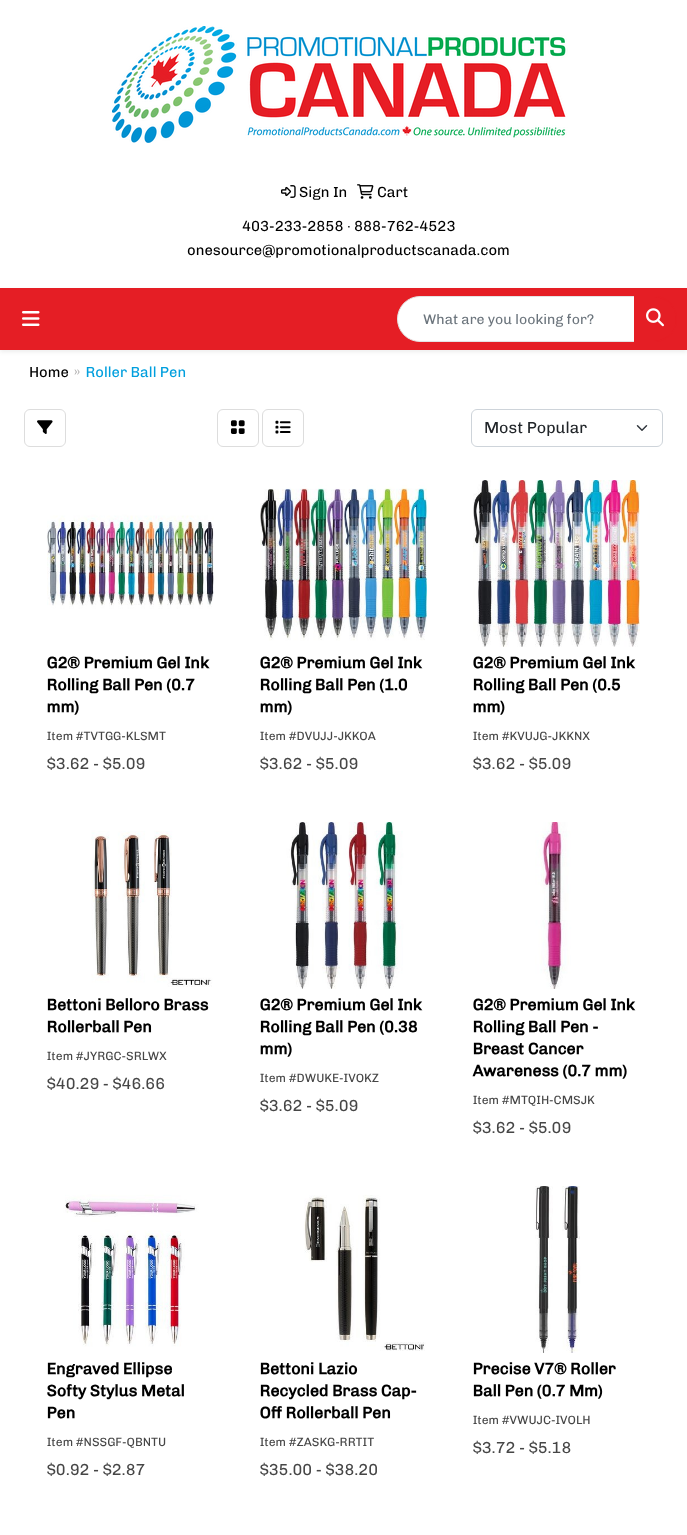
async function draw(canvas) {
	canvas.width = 687;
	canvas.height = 1535;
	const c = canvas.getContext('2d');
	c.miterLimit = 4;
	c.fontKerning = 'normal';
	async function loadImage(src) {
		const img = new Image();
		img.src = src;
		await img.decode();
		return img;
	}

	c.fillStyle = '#fff';
	c.fillRect(0, 0, 687, 1535);
	c.drawImage(await loadImage('img1.png'), 112, 26, 456, 117);
	c.drawImage(await loadImage('img2.png'), 281, 185, 15, 13);
	c.font = '500 14.7px Chivo';
	c.fillStyle = '#000';
	c.fillText('Sign In', 299, 197);
	c.drawImage(await loadImage('img3.png'), 357, 184, 17, 15);
	c.fillText('Cart', 377, 197);
	c.fillText('403-233-2858', 242, 231);
	c.fillStyle = '#212529';
	c.fillText('·', 347, 231);
	c.fillStyle = '#000';
	c.fillText('888-762-4523', 354, 231);
	c.fillText('onesource@promotionalproductscanada.com', 187, 255);
	c.fillStyle = '#00000012';
	c.filter = 'blur(2px)';
	c.beginPath();
	c.rect(0, 290, 687, 62);
	c.fill();
	c.filter = 'none';
	c.fillStyle = '#e51e25';
	c.fillRect(0, 288, 687, 62);
	c.drawImage(await loadImage('img4.png'), 22, 311, 18, 15);
	c.fillStyle = '#fff';
	c.beginPath();
	c.roundRect(397.5, 296.5, 237, 45, [22.5, 0, 0, 22.5]);
	c.fill();
	c.strokeStyle = '#e4e4e4';
	c.stroke();
	c.font = '500 14px Chivo';
	c.fillStyle = '#6c757d';
	c.fillText('What are you looking for?', 423, 324);
	c.fillStyle = '#e51e25';
	c.beginPath();
	c.roundRect(634, 297, 42, 44, [0, 22, 22, 0]);
	c.fill();
	c.beginPath();
	c.moveTo(634, 296);
	c.lineTo(654, 296);
	c.bezierCurveTo(667, 296, 677, 306, 677, 319);
	c.bezierCurveTo(677, 332, 667, 342, 654, 342);
	c.lineTo(634, 342);
	c.closePath();
	c.moveTo(634, 297);
	c.lineTo(654, 297);
	c.bezierCurveTo(666, 297, 676, 307, 676, 319);
	c.bezierCurveTo(676, 331, 666, 341, 654, 341);
	c.lineTo(634, 341);
	c.closePath();
	c.fill('evenodd');
	c.drawImage(await loadImage('img5.png'), 646, 308, 18, 19);
	c.drawImage(await loadImage('img6.png'), 24, 366, 639, 1110);
}

draw(document.querySelector('canvas'));
